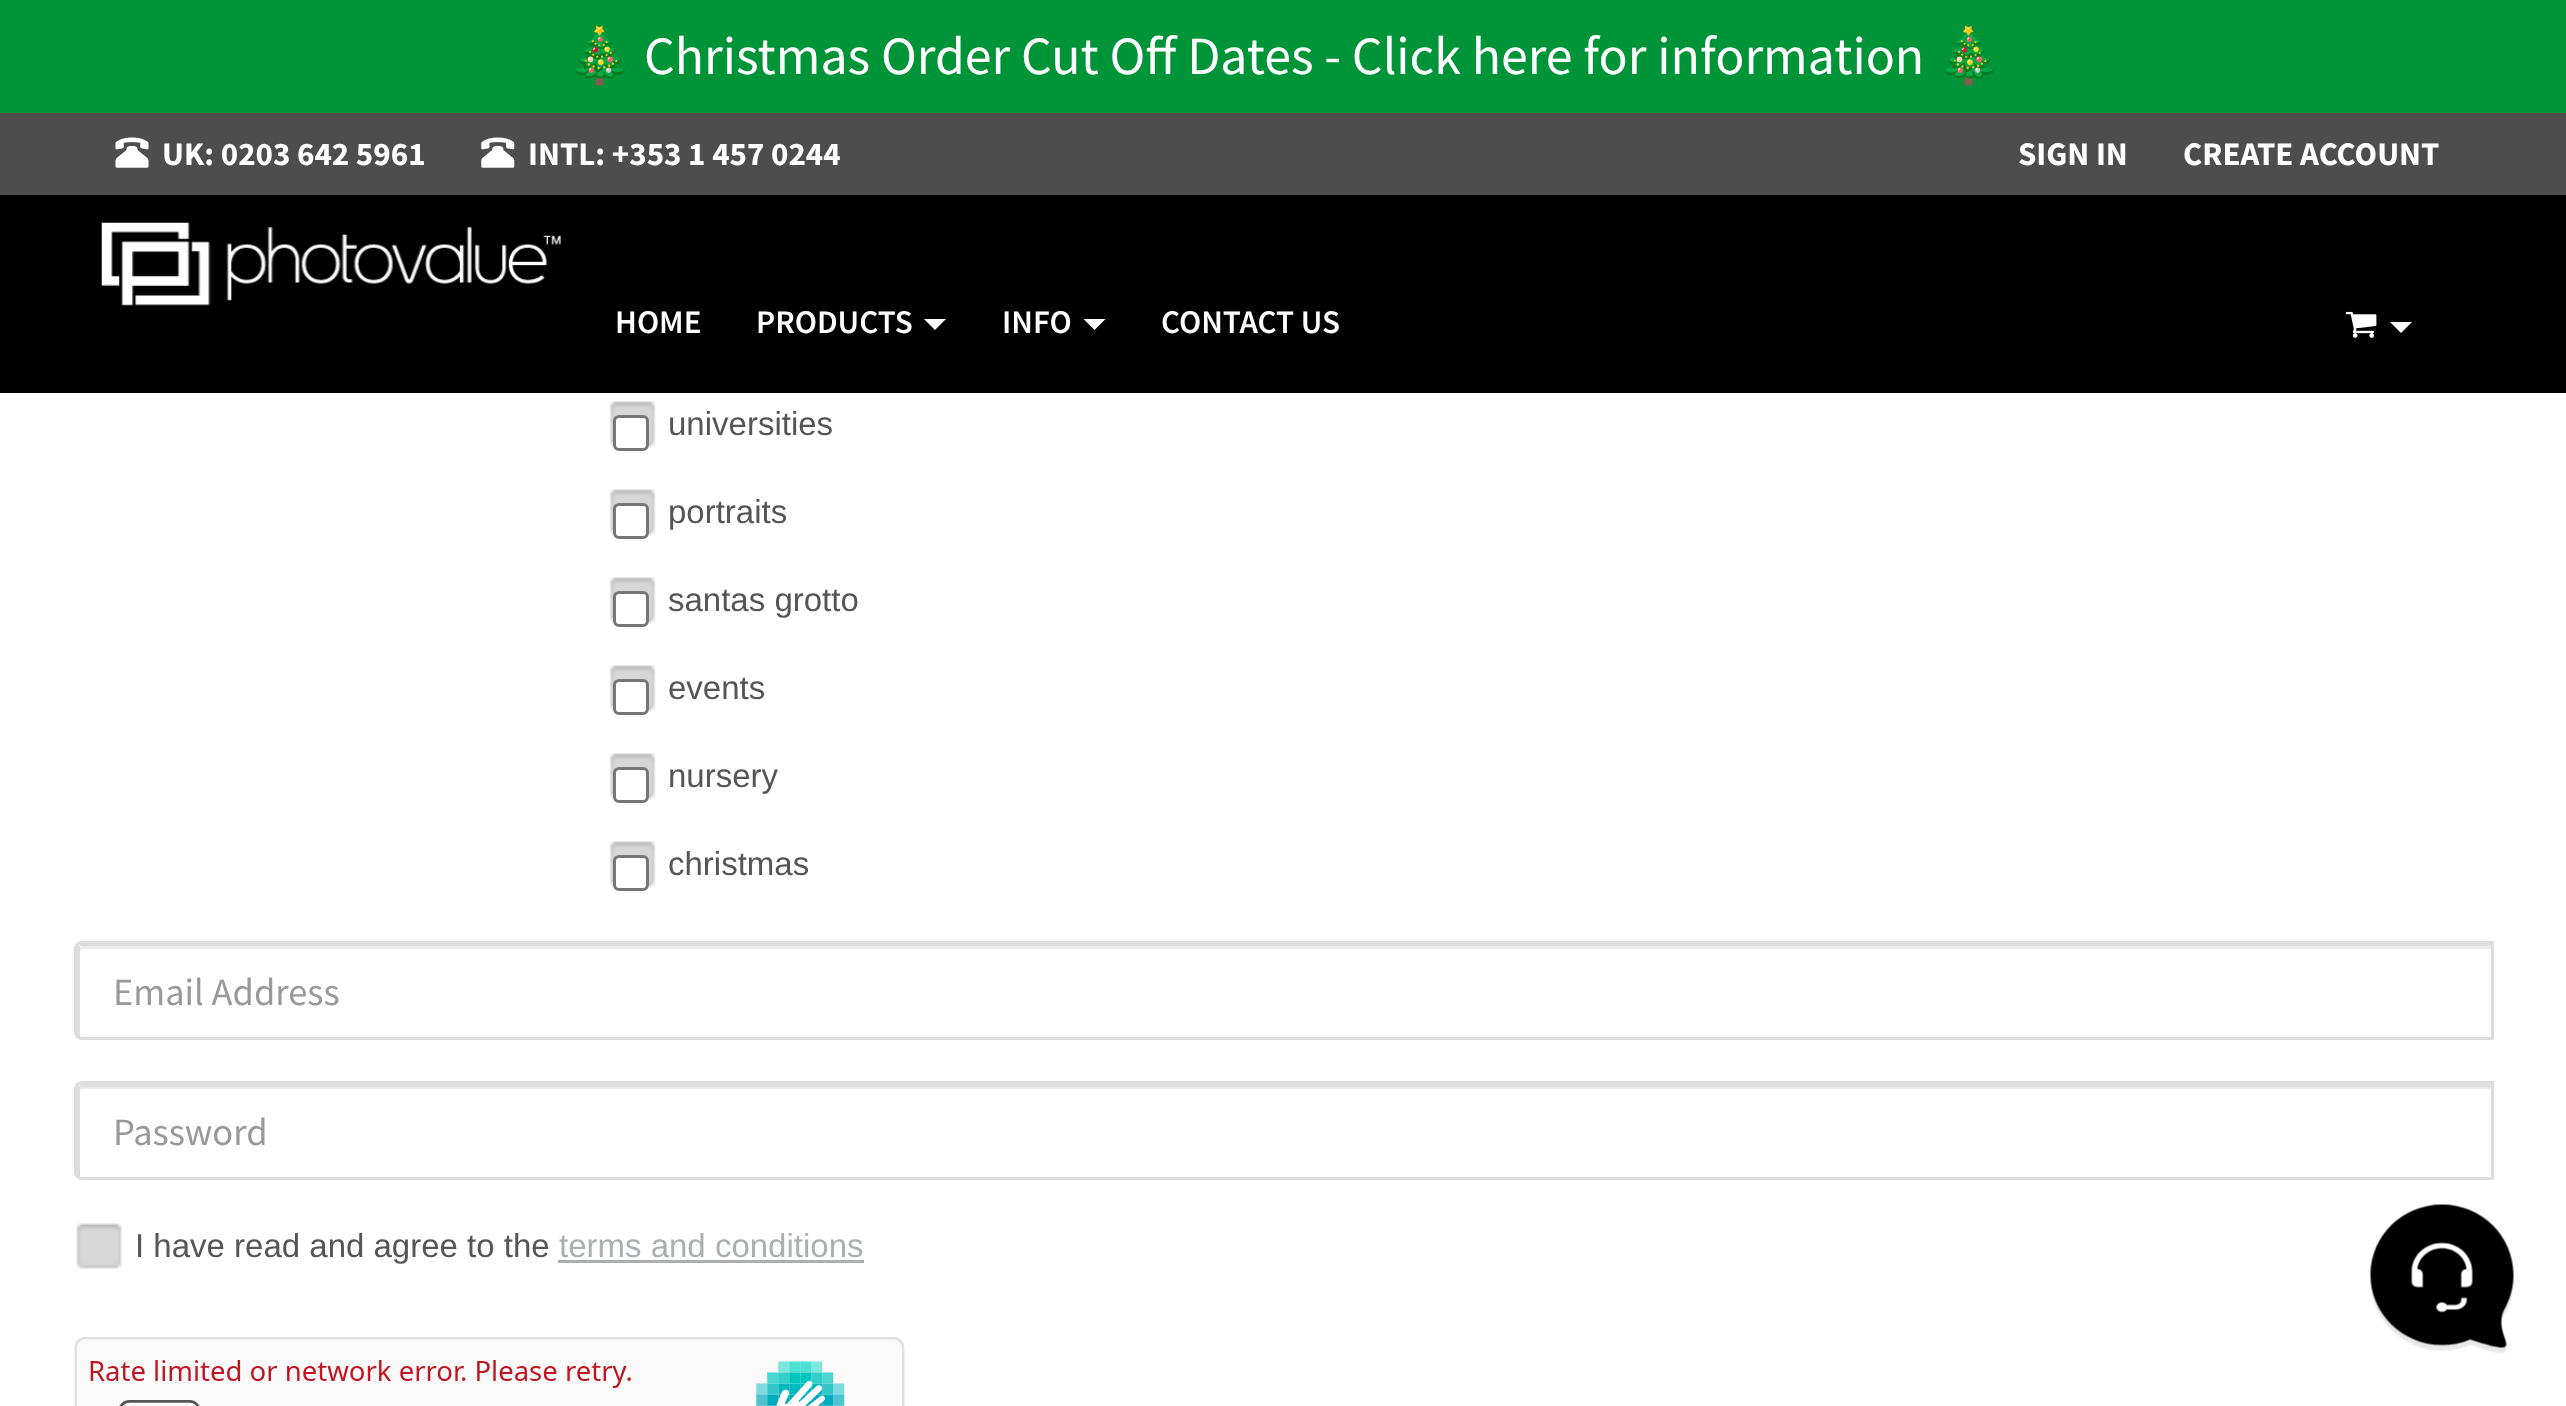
async function draw(canvas) {
	canvas.width = 2566;
	canvas.height = 1406;
	const c = canvas.getContext('2d');
	c.miterLimit = 4;
	c.fontKerning = 'normal';
	async function loadImage(src) {
		const img = new Image();
		img.src = src;
		await img.decode();
		return img;
	}

	c.fillStyle = '#fff';
	c.fillRect(0, 0, 2566, 1406);
	c.fillStyle = '#000';
	c.fillRect(0, 195, 2566, 198);
	c.fillStyle = '#009439';
	c.fillRect(0, 0, 2566, 113);
	c.font = '53.9px Noto Color Emoji';
	c.fillStyle = '#fff';
	c.fillText('🎄', 566, 74);
	c.font = '53.9px Source Sans Pro';
	c.fillText('Christmas Order Cut Off Dates - Click here for information', 644, 74);
	c.font = '53.9px Noto Color Emoji';
	c.fillText('🎄', 1935, 74);
	c.fillStyle = '#4d4d4d';
	c.fillRect(0, 113, 2566, 82);
	c.drawImage(await loadImage('img1.png'), 115, 137, 34, 31);
	c.font = 'bold 33px Source Sans Pro';
	c.fillStyle = '#fff';
	c.fillText('UK: 0203 642 5961', 162, 165);
	c.drawImage(await loadImage('img2.png'), 481, 137, 34, 31);
	for (const [text, x, y] of [
		['INTL: +353 1 457 0244', 528, 165],
		['SIGN IN', 2018, 165],
		['CREATE ACCOUNT', 2183, 165],
	]) {
		c.fillText(text, x, y);
	}
	c.drawImage(await loadImage('img3.png'), 101, 222, 460, 84);
	c.font = '600 33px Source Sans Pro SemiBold';
	c.fillText('HOME', 615, 333);
	c.fillText('PRODUCTS', 756, 333);
	c.beginPath();
	c.moveTo(924, 319);
	c.lineTo(946, 319);
	c.lineTo(935, 330);
	c.closePath();
	c.fill();
	c.fillText('INFO', 1002, 333);
	c.beginPath();
	c.moveTo(1083.5, 319);
	c.lineTo(1105.5, 319);
	c.lineTo(1094.5, 330);
	c.closePath();
	c.fill();
	c.fillText('CONTACT US', 1161, 333);
	c.drawImage(await loadImage('img4.png'), 2345, 311, 32, 27);
	c.beginPath();
	c.moveTo(2390, 322);
	c.lineTo(2412, 322);
	c.lineTo(2401, 333);
	c.closePath();
	c.fill();
	c.drawImage(await loadImage('img5.png'), 609, 401, 47, 46);
	c.beginPath();
	c.roundRect(614.5, 416.5, 33, 33, 4.5);
	c.fill();
	c.strokeStyle = '#767676';
	c.lineWidth = 3;
	c.stroke();
	c.font = '33px Liberation Sans';
	c.fillStyle = '#555';
	c.fillText('universities', 668, 435);
	c.drawImage(await loadImage('img5.png'), 609, 489, 47, 46);
	c.fillStyle = '#fff';
	c.beginPath();
	c.roundRect(614.5, 504.5, 33, 33, 4.5);
	c.fill();
	c.stroke();
	c.fillStyle = '#555';
	c.fillText('portraits', 668, 523);
	c.drawImage(await loadImage('img5.png'), 609, 577, 47, 46);
	c.fillStyle = '#fff';
	c.beginPath();
	c.roundRect(614.5, 592.5, 33, 33, 4.5);
	c.fill();
	c.stroke();
	c.fillStyle = '#555';
	c.fillText('santas grotto', 668, 611);
	c.drawImage(await loadImage('img5.png'), 609, 665, 47, 46);
	c.fillStyle = '#fff';
	c.beginPath();
	c.roundRect(614.5, 680.5, 33, 33, 4.5);
	c.fill();
	c.stroke();
	c.fillStyle = '#555';
	c.fillText('events', 668, 699);
	c.drawImage(await loadImage('img5.png'), 609, 753, 47, 46);
	c.fillStyle = '#fff';
	c.beginPath();
	c.roundRect(614.5, 768.5, 33, 33, 4.5);
	c.fill();
	c.stroke();
	c.fillStyle = '#555';
	c.fillText('nursery', 668, 787);
	c.drawImage(await loadImage('img5.png'), 609, 841, 47, 46);
	c.fillStyle = '#fff';
	c.beginPath();
	c.roundRect(614.5, 856.5, 33, 33, 4.5);
	c.fill();
	c.stroke();
	c.fillStyle = '#555';
	c.fillText('christmas', 668, 875);
	c.fillStyle = '#ececec';
	c.beginPath();
	c.moveTo(82, 949);
	c.lineTo(2492, 949);
	c.lineTo(2492, 946);
	c.lineTo(82, 946);
	c.bezierCurveTo(81, 946, 80, 947, 80, 949);
	c.lineTo(80, 1034);
	c.lineTo(80, 952);
	c.bezierCurveTo(80, 950, 81, 949, 82, 949);
	c.closePath();
	c.fill();
	c.beginPath();
	c.roundRect(75.5, 942.5, 2417, 96, [6.5, 0, 0, 6.5]);
	c.strokeStyle = '#ddd';
	c.stroke();
	c.fillStyle = '#ddd';
	c.fillRect(80, 944, 2414, 2);
	c.fillRect(77, 946, 3, 91);
	c.font = '38.5px Source Sans Pro';
	c.fillStyle = '#999';
	c.fillText('Email Address', 113, 1005);
	c.fillStyle = '#ececec';
	c.beginPath();
	c.moveTo(82, 1089);
	c.lineTo(2492, 1089);
	c.lineTo(2492, 1086);
	c.lineTo(82, 1086);
	c.bezierCurveTo(81, 1086, 80, 1087, 80, 1089);
	c.lineTo(80, 1174);
	c.lineTo(80, 1092);
	c.bezierCurveTo(80, 1090, 81, 1089, 82, 1089);
	c.closePath();
	c.fill();
	c.beginPath();
	c.roundRect(75.5, 1082.5, 2417, 96, [6.5, 0, 0, 6.5]);
	c.stroke();
	c.fillStyle = '#ddd';
	c.fillRect(80, 1084, 2414, 3);
	c.fillRect(77, 1086, 3, 91);
	c.fillStyle = '#999';
	c.fillText('Password', 113, 1145);
	c.drawImage(await loadImage('img6.png'), 76, 1223, 46, 46);
	c.font = '33px Liberation Sans';
	c.fillStyle = '#555';
	c.fillText('I have read and agree to the', 135, 1257);
	c.fillStyle = '#abafb3';
	c.fillText('terms and conditions', 559, 1257);
	c.fillRect(558, 1260, 306, 3);
	c.drawImage(await loadImage('img7.png'), 74, 1337, 831, 69);
	c.drawImage(await loadImage('img8.png'), 2370, 1204, 144, 150);
}

draw(document.querySelector('canvas'));
